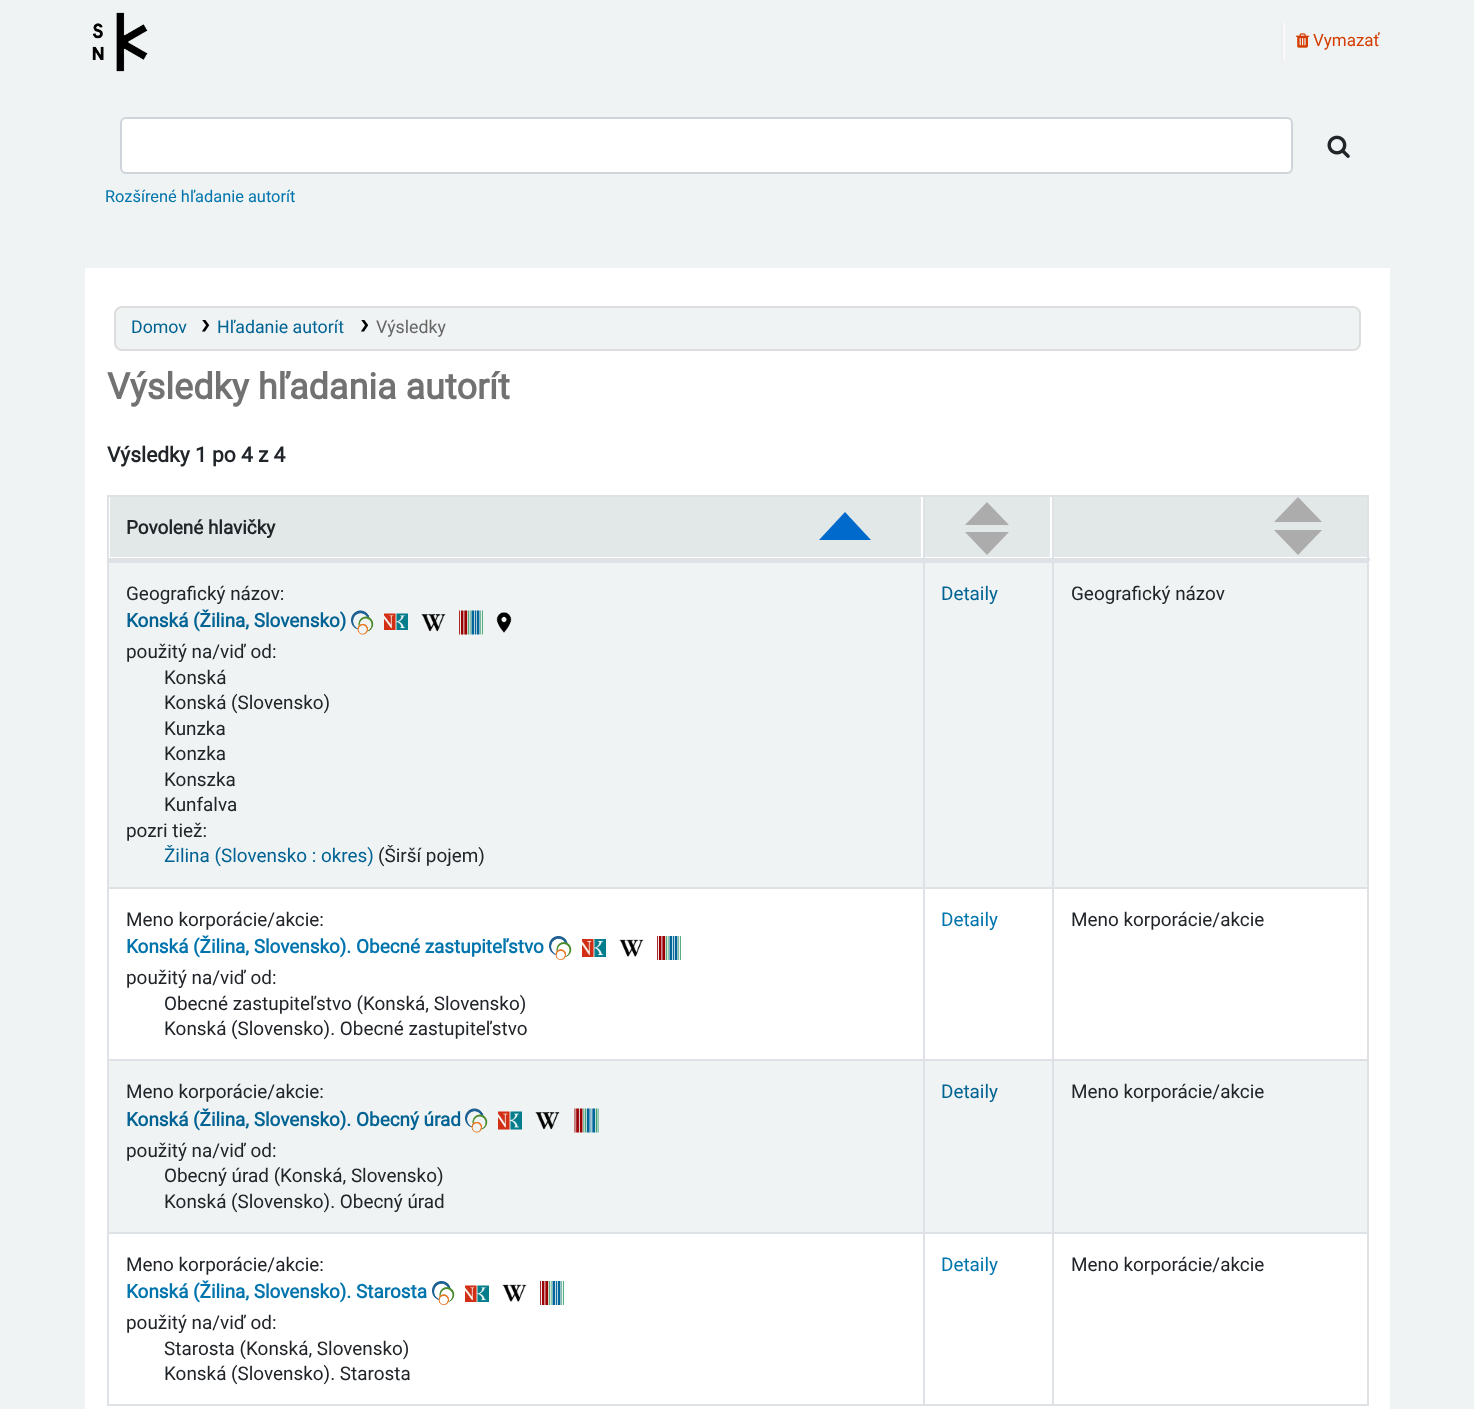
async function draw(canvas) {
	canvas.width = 1474;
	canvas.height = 1409;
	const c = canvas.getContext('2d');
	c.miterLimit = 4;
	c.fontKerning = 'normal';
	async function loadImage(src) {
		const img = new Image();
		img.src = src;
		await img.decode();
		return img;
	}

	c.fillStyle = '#f0f3f3';
	c.fillRect(0, 0, 1474, 1409);
	c.drawImage(await loadImage('img1.png'), 92, 12, 56, 60);
	for (const [x, y, w, h, color] of [
		[1283, 23, 2, 39, '#fcf9fc'],
		[1281, 60, 3, 2, '#eee'],
		[1281, 23, 2, 39, '#eee'],
	]) {
		c.fillStyle = color;
		c.fillRect(x, y, w, h);
	}
	c.drawImage(await loadImage('img2.png'), 1296, 33, 14, 15);
	c.font = '17px Roboto';
	c.fillStyle = '#d43c00';
	c.fillText('Vymazať', 1313, 46);
	c.fillStyle = '#fff';
	c.beginPath();
	c.roundRect(121, 118, 1171, 55, 5);
	c.fill();
	c.strokeStyle = '#ced4da';
	c.lineWidth = 2;
	c.stroke();
	c.drawImage(await loadImage('img3.png'), 1327, 135, 23, 23);
	c.font = '16.4px Roboto';
	c.fillStyle = '#0074ad';
	c.fillText('Rozšírené hľadanie autorít', 105, 202);
	c.fillStyle = '#fff';
	c.fillRect(85, 268, 1305, 1141);
	c.fillStyle = '#f0f3f3';
	c.beginPath();
	c.roundRect(115, 307, 1245, 43, 7);
	c.fill();
	c.strokeStyle = '#ddd';
	c.stroke();
	c.font = '17.75px Roboto';
	c.fillStyle = '#006394';
	c.fillText('Domov', 131, 333);
	c.drawImage(await loadImage('img4.png'), 202, 320, 8, 12);
	c.fillText('Hľadanie autorít', 217, 333);
	c.drawImage(await loadImage('img4.png'), 361, 320, 8, 12);
	c.fillStyle = '#666';
	c.fillText('Výsledky', 376, 333);
	c.font = 'bold 36px Roboto';
	c.fillStyle = '#727272';
	c.fillText('Výsledky hľadania autorít', 107, 399);
	c.font = 'bold 21px Roboto';
	c.fillStyle = '#212529';
	c.fillText('Výsledky 1 po 4 z 4', 107, 462);
	for (const [x, y, w, h, color] of [
		[107, 495, 1261, 2, '#dee2e6'],
		[1367, 495, 2, 911, '#dee2e6'],
		[107, 1404, 1261, 2, '#dee2e6'],
		[107, 495, 2, 911, '#dee2e6'],
		[1054, 497, 313, 60, '#e2e8e8'],
	]) {
		c.fillStyle = color;
		c.fillRect(x, y, w, h);
	}
	c.fillStyle = '#acacac';
	c.beginPath();
	c.moveTo(1322, 530);
	c.lineTo(1274, 530);
	c.lineTo(1298, 555);
	c.closePath();
	c.moveTo(1322, 522);
	c.lineTo(1274, 522);
	c.lineTo(1298, 497);
	c.closePath();
	c.fill();
	for (const [x, y, w, h, color] of [
		[1052, 495, 2, 65, '#dee2e6'],
		[923, 495, 2, 65, '#dee2e6'],
		[107, 558, 1263, 3, '#dee2e6'],
		[110, 497, 811, 60, '#e2e8e8'],
	]) {
		c.fillStyle = color;
		c.fillRect(x, y, w, h);
	}
	c.fillStyle = '#006acc';
	c.beginPath();
	c.moveTo(871, 540);
	c.lineTo(819, 540);
	c.lineTo(845, 512);
	c.closePath();
	c.fill();
	c.font = 'bold 18.9px Roboto';
	c.fillStyle = '#212529';
	c.fillText('Povolené hlavičky', 126, 534);
	c.fillStyle = '#e2e8e8';
	c.fillRect(925, 497, 125, 60);
	c.fillStyle = '#acacac';
	c.beginPath();
	c.moveTo(1009, 532);
	c.lineTo(965, 532);
	c.lineTo(987, 555);
	c.closePath();
	c.moveTo(1009, 525);
	c.lineTo(965, 525);
	c.lineTo(987, 502);
	c.closePath();
	c.fill();
	for (const [x, y, w, h, color] of [
		[109, 563, 814, 324, '#f0f3f3'],
		[1052, 561, 316, 2, '#dee2e6'],
		[1052, 887, 316, 2, '#dee2e6'],
		[1052, 1059, 316, 2, '#dee2e6'],
		[1052, 1232, 316, 2, '#dee2e6'],
		[1052, 1232, 2, 174, '#dee2e6'],
		[923, 1232, 130, 2, '#dee2e6'],
		[1052, 1059, 2, 174, '#dee2e6'],
		[923, 1059, 130, 2, '#dee2e6'],
		[1052, 887, 2, 174, '#dee2e6'],
		[923, 887, 130, 2, '#dee2e6'],
		[1052, 561, 2, 327, '#dee2e6'],
		[923, 561, 130, 2, '#dee2e6'],
		[923, 1232, 2, 174, '#dee2e6'],
		[107, 1232, 817, 2, '#dee2e6'],
		[923, 1059, 2, 174, '#dee2e6'],
		[107, 1059, 817, 2, '#dee2e6'],
		[923, 887, 2, 174, '#dee2e6'],
		[107, 887, 817, 2, '#dee2e6'],
		[923, 561, 2, 327, '#dee2e6'],
		[107, 561, 817, 2, '#dee2e6'],
	]) {
		c.fillStyle = color;
		c.fillRect(x, y, w, h);
	}
	c.font = '18.9px Roboto';
	c.fillStyle = '#212529';
	c.fillText('Geografický názov:', 126, 600);
	c.font = 'bold 18.9px Roboto';
	c.fillStyle = '#006394';
	c.fillText('Konská (Žilina, Slovensko)', 126, 627);
	c.drawImage(await loadImage('img5.png'), 351, 610, 23, 25);
	c.drawImage(await loadImage('img6.png'), 384, 613, 24, 17);
	c.drawImage(await loadImage('img7.png'), 421, 614, 25, 18);
	c.drawImage(await loadImage('img8.png'), 459, 610, 24, 25);
	c.drawImage(await loadImage('img9.png'), 496, 612, 16, 21);
	c.font = '18.9px Roboto';
	c.fillStyle = '#212529';
	for (const [text, x, y] of [
		['použitý na/viď od:', 126, 658],
		['Konská', 164, 684],
		['Konská (Slovensko)', 164, 709],
		['Kunzka', 164, 735],
		['Konzka', 164, 760],
		['Konszka', 164, 786],
		['Kunfalva', 164, 811],
		['pozri tiež:', 126, 837],
	]) {
		c.fillText(text, x, y);
	}
	c.fillStyle = '#006394';
	c.fillText('Žilina (Slovensko : okres)', 164, 862);
	c.fillStyle = '#212529';
	c.fillText('(Širší pojem)', 378, 862);
	c.fillStyle = '#f0f3f3';
	c.fillRect(925, 563, 127, 324);
	c.fillStyle = '#006394';
	c.fillText('Detaily', 941, 600);
	c.fillStyle = '#f0f3f3';
	c.fillRect(1054, 563, 313, 324);
	c.fillStyle = '#212529';
	c.fillText('Geografický názov', 1071, 600);
	c.fillText('Meno korporácie/akcie:', 126, 926);
	c.font = 'bold 18.9px Roboto';
	c.fillStyle = '#0074ad';
	c.fillText('Konská (Žilina, Slovensko). Obecné zastupiteľstvo', 126, 953);
	c.drawImage(await loadImage('img10.png'), 549, 936, 23, 24);
	c.drawImage(await loadImage('img11.png'), 582, 939, 24, 18);
	c.drawImage(await loadImage('img12.png'), 619, 939, 25, 18);
	c.drawImage(await loadImage('img13.png'), 657, 936, 24, 24);
	c.font = '18.9px Roboto';
	c.fillStyle = '#212529';
	for (const [text, x, y] of [
		['použitý na/viď od:', 126, 984],
		['Obecné zastupiteľstvo (Konská, Slovensko)', 164, 1010],
		['Konská (Slovensko). Obecné zastupiteľstvo', 164, 1035],
	]) {
		c.fillText(text, x, y);
	}
	c.fillStyle = '#0074ad';
	c.fillText('Detaily', 941, 926);
	c.fillStyle = '#212529';
	c.fillText('Meno korporácie/akcie', 1071, 926);
	c.fillStyle = '#f0f3f3';
	c.fillRect(109, 1061, 814, 171);
	c.fillStyle = '#212529';
	c.fillText('Meno korporácie/akcie:', 126, 1098);
	c.font = 'bold 18.9px Roboto';
	c.fillStyle = '#006394';
	c.fillText('Konská (Žilina, Slovensko). Obecný úrad', 126, 1126);
	c.drawImage(await loadImage('img5.png'), 465, 1108, 23, 25);
	c.drawImage(await loadImage('img14.png'), 498, 1111, 24, 19);
	c.drawImage(await loadImage('img7.png'), 535, 1112, 25, 18);
	c.drawImage(await loadImage('img15.png'), 574, 1108, 25, 25);
	c.font = '18.9px Roboto';
	c.fillStyle = '#212529';
	for (const [text, x, y] of [
		['použitý na/viď od:', 126, 1157],
		['Obecný úrad (Konská, Slovensko)', 164, 1182],
		['Konská (Slovensko). Obecný úrad', 164, 1208],
	]) {
		c.fillText(text, x, y);
	}
	c.fillStyle = '#f0f3f3';
	c.fillRect(925, 1061, 127, 171);
	c.fillStyle = '#006394';
	c.fillText('Detaily', 941, 1098);
	c.fillStyle = '#f0f3f3';
	c.fillRect(1054, 1061, 313, 171);
	c.fillStyle = '#212529';
	c.fillText('Meno korporácie/akcie', 1071, 1098);
	c.fillText('Meno korporácie/akcie:', 126, 1271);
	c.font = 'bold 18.9px Roboto';
	c.fillStyle = '#0074ad';
	c.fillText('Konská (Žilina, Slovensko). Starosta', 126, 1298);
	c.drawImage(await loadImage('img16.png'), 432, 1281, 23, 24);
	c.drawImage(await loadImage('img17.png'), 465, 1285, 24, 17);
	c.drawImage(await loadImage('img18.png'), 502, 1284, 25, 18);
	c.drawImage(await loadImage('img13.png'), 540, 1281, 24, 24);
	c.font = '18.9px Roboto';
	c.fillStyle = '#212529';
	for (const [text, x, y] of [
		['použitý na/viď od:', 126, 1329],
		['Starosta (Konská, Slovensko)', 164, 1355],
		['Konská (Slovensko). Starosta', 164, 1380],
	]) {
		c.fillText(text, x, y);
	}
	c.fillStyle = '#0074ad';
	c.fillText('Detaily', 941, 1271);
	c.fillStyle = '#212529';
	c.fillText('Meno korporácie/akcie', 1071, 1271);
}

draw(document.querySelector('canvas'));
